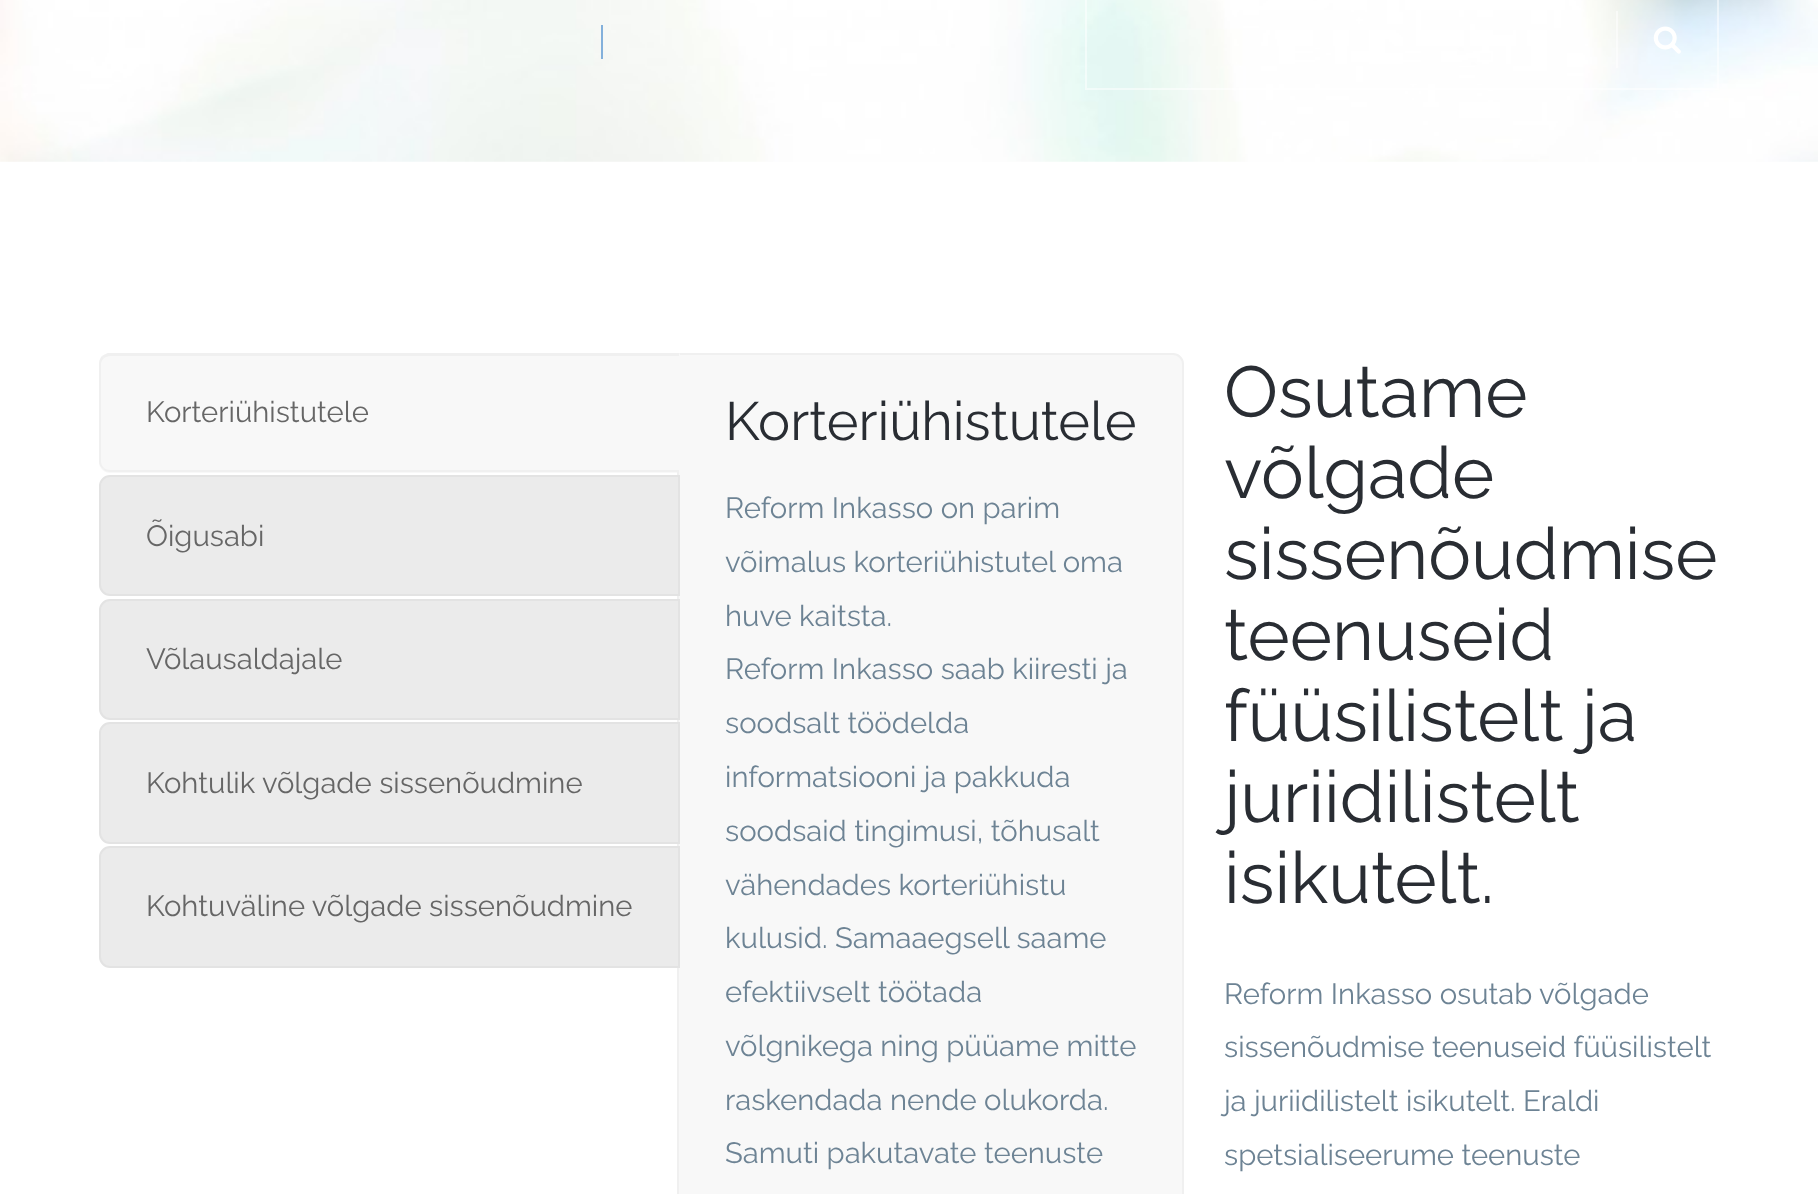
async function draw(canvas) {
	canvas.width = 1818;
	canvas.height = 1194;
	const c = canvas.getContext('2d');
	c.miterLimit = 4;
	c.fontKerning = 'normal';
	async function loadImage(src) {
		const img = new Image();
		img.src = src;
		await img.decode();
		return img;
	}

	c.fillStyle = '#fff';
	c.fillRect(0, 0, 1818, 1194);
	c.drawImage(await loadImage('img1.png'), 0, 0, 1818, 162);
	c.fillStyle = '#83b0db';
	c.fillRect(601, 25, 2, 34);
	c.strokeStyle = '#ffffff80';
	c.lineWidth = 2;
	c.strokeRect(1086, -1, 632, 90);
	c.fillStyle = '#ffffff80';
	c.fillRect(1616, 11, 2, 57);
	c.drawImage(await loadImage('img2.png'), 1653, 26, 28, 28);
	c.fillStyle = '#f8f8f8';
	c.beginPath();
	c.moveTo(678, 354);
	c.lineTo(1173, 354);
	c.bezierCurveTo(1178.5, 354, 1183, 358.5, 1183, 364);
	c.lineTo(1183, 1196);
	c.bezierCurveTo(1183, 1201.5, 1178.5, 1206, 1173, 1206);
	c.lineTo(688, 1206);
	c.bezierCurveTo(682.5, 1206, 678, 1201.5, 678, 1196);
	c.closePath();
	c.fill();
	c.strokeStyle = '#f0f0f0';
	c.stroke();
	c.beginPath();
	c.roundRect(99, 353, 581, 120, [11, 0, 0, 11]);
	c.fill();
	c.fillStyle = '#f0f0f0';
	c.beginPath();
	c.moveTo(110, 356);
	c.bezierCurveTo(108, 356, 106, 357, 104, 358);
	c.lineTo(102, 356);
	c.bezierCurveTo(104, 355, 106, 354, 108, 353);
	c.lineTo(680, 353);
	c.lineTo(677, 356);
	c.closePath();
	c.fill();
	c.beginPath();
	c.moveTo(679, 472);
	c.lineTo(110, 472);
	c.bezierCurveTo(107, 472, 104, 471, 103, 469);
	c.lineTo(104, 468);
	c.bezierCurveTo(105, 469, 108, 470, 110, 470);
	c.lineTo(677, 470);
	c.closePath();
	c.fill();
	c.beginPath();
	c.moveTo(99, 364);
	c.lineTo(99, 461);
	c.bezierCurveTo(99, 464, 100, 467, 103, 469);
	c.lineTo(104, 468);
	c.bezierCurveTo(102, 466, 101, 464, 101, 461);
	c.lineTo(101, 364);
	c.bezierCurveTo(101, 362, 102, 360, 104, 358);
	c.lineTo(102, 356);
	c.bezierCurveTo(100, 358, 99, 361, 99, 364);
	c.closePath();
	c.fill();
	c.fillRect(677, 353, 2, 3);
	c.font = '29.25px Raleway';
	c.fillStyle = '#666';
	c.fillText('Korteriühistutele', 146, 422);
	c.fillStyle = '#f0f0f0';
	c.fillRect(677, 470, 2, 3);
	c.fillStyle = '#ebebeb';
	c.beginPath();
	c.roundRect(100, 476, 579, 119, [10, 0, 0, 10]);
	c.fill();
	c.strokeStyle = '#e3e3e3';
	c.stroke();
	c.fillStyle = '#666';
	c.fillText('Õigusabi', 146, 546);
	c.fillStyle = '#ebebeb';
	c.beginPath();
	c.roundRect(100, 600, 579, 119, [10, 0, 0, 10]);
	c.fill();
	c.stroke();
	c.fillStyle = '#666';
	c.fillText('Võlausaldajale', 146, 669);
	c.fillStyle = '#ebebeb';
	c.beginPath();
	c.roundRect(100, 723, 579, 120, [10, 0, 0, 10]);
	c.fill();
	c.stroke();
	c.fillStyle = '#666';
	c.fillText('Kohtulik võlgade sissenõudmine', 146, 793);
	c.fillStyle = '#ebebeb';
	c.beginPath();
	c.roundRect(100, 847, 579, 120, [10, 0, 0, 10]);
	c.fill();
	c.stroke();
	c.fillStyle = '#666';
	c.fillText('Kohtuväline võlgade sissenõudmine', 146, 916);
	c.font = '54px Raleway';
	c.fillStyle = '#292d33';
	c.fillText('Korteriühistutele', 725, 440);
	c.font = '29.25px Raleway';
	c.fillStyle = '#6d8394';
	for (const [text, x, y] of [
		['Reform Inkasso on parim', 725, 518],
		['võimalus korteriühistutel oma', 725, 572],
		['huve kaitsta.', 725, 626],
		['Reform Inkasso saab kiiresti ja', 725, 679],
		['soodsalt töödelda', 725, 733],
		['informatsiooni ja pakkuda', 725, 787],
		['soodsaid tingimusi, tõhusalt', 725, 841],
		['vähendades korteriühistu', 725, 895],
		['kulusid. Samaaegsell saame', 725, 948],
		['efektiivselt töötada', 725, 1002],
		['võlgnikega ning püüame mitte', 725, 1056],
		['raskendada nende olukorda.', 725, 1110],
		['Samuti pakutavate teenuste', 725, 1163],
	]) {
		c.fillText(text, x, y);
	}
	c.font = '72px Raleway';
	c.fillStyle = '#292d33';
	for (const [text, x, y] of [
		['Osutame', 1224, 417],
		['võlgade', 1224, 498],
		['sissenõudmise', 1224, 579],
		['teenuseid', 1224, 660],
		['füüsilistelt ja', 1224, 741],
		['juriidilistelt', 1224, 822],
		['isikutelt.', 1224, 903],
	]) {
		c.fillText(text, x, y);
	}
	c.font = '29.25px Raleway';
	c.fillStyle = '#6d8394';
	for (const [text, x, y] of [
		['Reform Inkasso osutab võlgade', 1224, 1004],
		['sissenõudmise teenuseid füüsilistelt', 1224, 1057],
		['ja juriidilistelt isikutelt. Eraldi', 1224, 1111],
		['spetsialiseerume teenuste', 1224, 1165],
	]) {
		c.fillText(text, x, y);
	}
}

draw(document.querySelector('canvas'));
